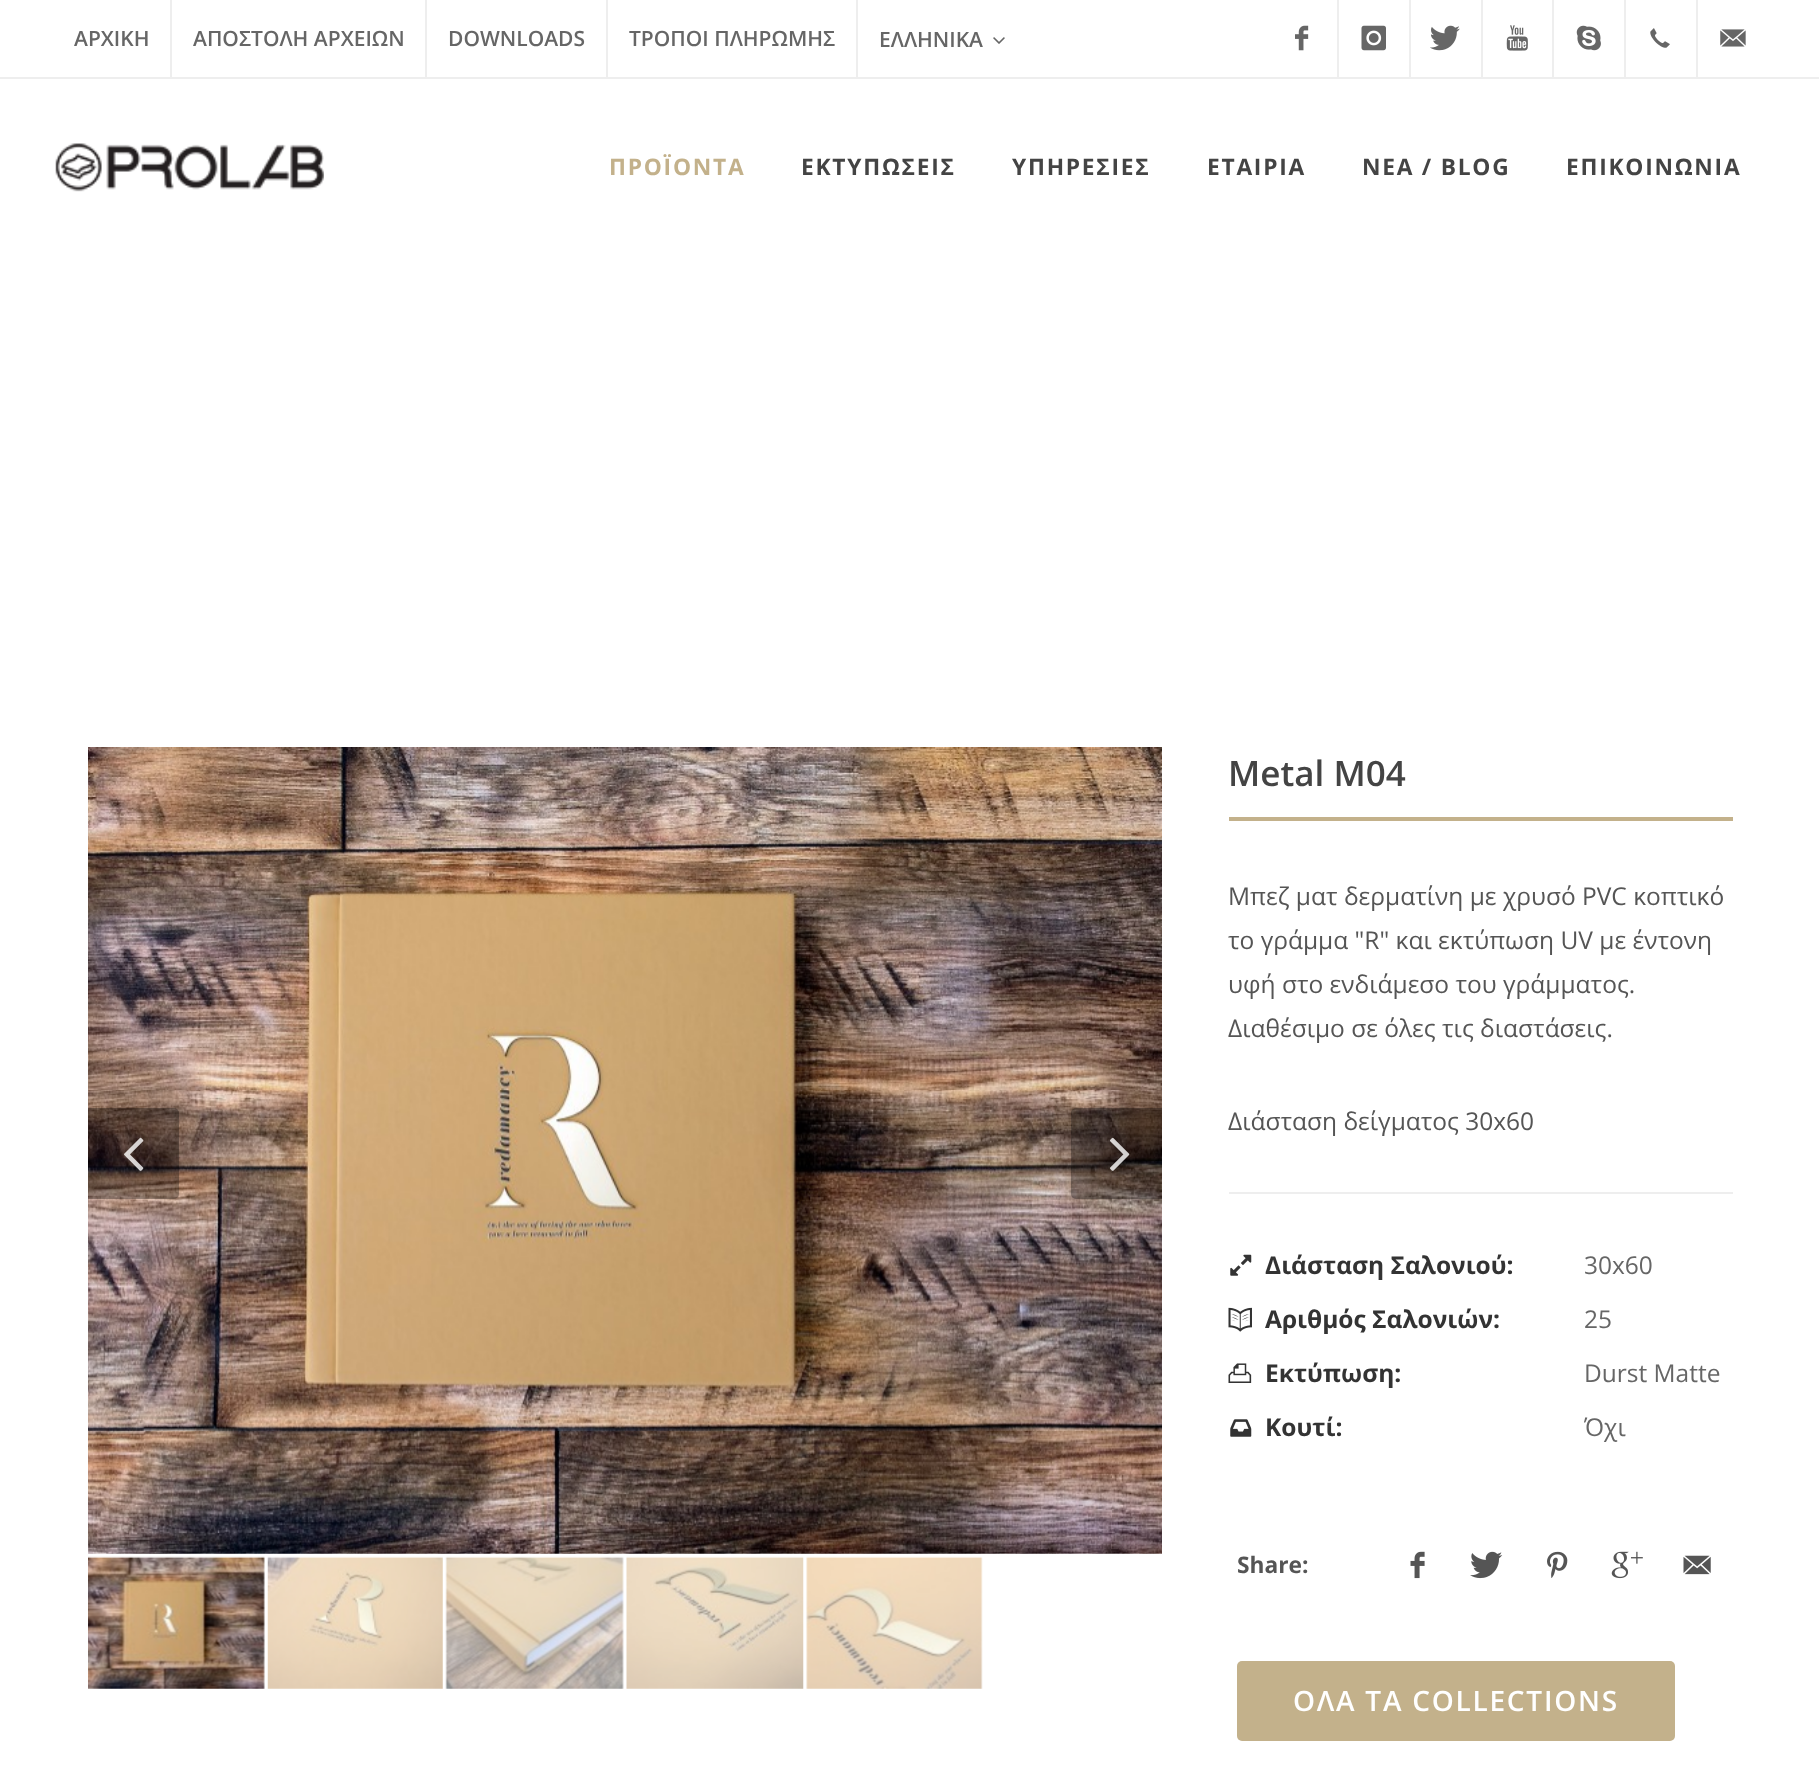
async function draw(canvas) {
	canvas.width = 1819;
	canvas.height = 1778;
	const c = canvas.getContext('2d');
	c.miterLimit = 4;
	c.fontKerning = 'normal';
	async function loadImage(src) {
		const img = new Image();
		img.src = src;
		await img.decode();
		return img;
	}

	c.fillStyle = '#fff';
	c.fillRect(0, 0, 1819, 1778);
	c.fillStyle = '#eee';
	c.fillRect(0, 77, 1819, 2);
	c.font = '600 21px Open Sans';
	c.fillStyle = '#666';
	c.fillText('ΑΡΧΙΚΗ', 74, 46);
	c.fillStyle = '#eee';
	c.fillRect(170, 0, 2, 77);
	c.fillStyle = '#666';
	c.fillText('ΑΠΟΣΤΟΛΗ ΑΡΧΕΙΩΝ', 193, 46);
	c.fillStyle = '#eee';
	c.fillRect(425, 0, 2, 77);
	c.fillStyle = '#666';
	c.fillText('DOWNLOADS', 448, 46);
	c.fillStyle = '#eee';
	c.fillRect(606, 0, 2, 77);
	c.fillStyle = '#666';
	c.fillText('ΤΡΟΠΟΙ ΠΛΗΡΩΜΗΣ', 629, 46);
	c.fillStyle = '#eee';
	c.fillRect(856, 0, 2, 77);
	c.fillStyle = '#666';
	c.fillText('ΕΛΛΗΝΙΚΑ', 879, 47);
	c.drawImage(await loadImage('img1.png'), 993, 37, 12, 7);
	c.drawImage(await loadImage('img2.png'), 1295, 25, 14, 26);
	c.fillStyle = '#eee';
	c.fillRect(1337, 0, 2, 77);
	c.drawImage(await loadImage('img3.png'), 1361, 25, 25, 26);
	c.fillRect(1409, 0, 2, 77);
	c.drawImage(await loadImage('img4.png'), 1430, 25, 30, 26);
	c.fillRect(1481, 0, 2, 77);
	c.drawImage(await loadImage('img5.png'), 1506, 25, 22, 26);
	c.fillRect(1552, 0, 2, 77);
	c.drawImage(await loadImage('img6.png'), 1576, 25, 25, 26);
	c.fillRect(1624, 0, 2, 77);
	c.drawImage(await loadImage('img7.png'), 1650, 28, 20, 20);
	c.fillRect(1696, 0, 2, 77);
	c.drawImage(await loadImage('img8.png'), 1720, 29, 26, 18);
	c.drawImage(await loadImage('img9.png'), 55, 143, 269, 49);
	c.letterSpacing = '1.75px';
	c.font = 'bold 22.75px Open Sans';
	c.fillStyle = '#c3b18b';
	c.fillText('ΠΡΟΪΟΝΤΑ', 609, 175);
	c.fillStyle = '#444';
	for (const [text, x, y] of [
		['ΕΚΤΥΠΩΣΕΙΣ', 801, 175],
		['ΥΠΗΡΕΣΙΕΣ', 1012, 175],
		['ΕΤΑΙΡΙΑ', 1207, 175],
		['ΝΕΑ / BLOG', 1362, 175],
		['ΕΠΙΚΟΙΝΩΝΙΑ', 1566, 175],
	]) {
		c.fillText(text, x, y);
	}
	c.drawImage(await loadImage('img10.png'), 88, 747, 1074, 807);
	c.fillStyle = '#0000004d';
	c.beginPath();
	c.roundRect(88, 1108, 91, 91, [0, 5, 5, 0]);
	c.fill();
	c.drawImage(await loadImage('img11.png'), 124, 1137, 20, 34);
	c.beginPath();
	c.roundRect(1071, 1108, 91, 91, [5, 0, 0, 5]);
	c.fill();
	c.drawImage(await loadImage('img12.png'), 1110, 1137, 20, 34);
	c.drawImage(await loadImage('img13.png'), 88, 1556, 177, 133);
	c.drawImage(await loadImage('img14.png'), 267, 1556, 176, 133);
	c.drawImage(await loadImage('img15.png'), 445, 1556, 179, 133);
	c.drawImage(await loadImage('img16.png'), 626, 1556, 178, 133);
	c.drawImage(await loadImage('img17.png'), 806, 1556, 177, 133);
	c.fillStyle = '#c3b18b';
	c.fillRect(1229, 817, 504, 4);
	c.letterSpacing = '0px';
	c.font = '600 35px Open Sans';
	c.fillStyle = '#444';
	c.fillText('Metal M04', 1228, 786);
	c.font = '24.5px Open Sans';
	c.fillStyle = '#555';
	for (const [text, x, y] of [
		['Μπεζ ματ δερματίνη με χρυσό PVC κοπτικό', 1228, 905],
		['το γράμμα "R" και εκτύπωση UV με έντονη', 1228, 949],
		['υφή στο ενδιάμεσο του γράμματος.', 1228, 993],
		['Διαθέσιμο σε όλες τις διαστάσεις.', 1228, 1037],
		['Διάσταση δείγματος 30x60', 1228, 1130],
	]) {
		c.fillText(text, x, y);
	}
	c.fillStyle = '#eee';
	c.fillRect(1229, 1192, 504, 2);
	c.drawImage(await loadImage('img18.png'), 1230, 1254, 22, 22);
	c.font = 'bold 24.5px Open Sans';
	c.fillStyle = '#333';
	c.fillText('Διάσταση Σαλονιού:', 1265, 1274);
	c.font = '24.5px Open Sans';
	c.fillStyle = '#666';
	c.fillText('30x60', 1584, 1274);
	c.drawImage(await loadImage('img19.png'), 1228, 1307, 24, 25);
	c.font = 'bold 24.5px Open Sans';
	c.fillStyle = '#333';
	c.fillText('Αριθμός Σαλονιών:', 1265, 1328);
	c.font = '24.5px Open Sans';
	c.fillStyle = '#666';
	c.fillText('25', 1584, 1328);
	c.drawImage(await loadImage('img20.png'), 1228, 1363, 24, 20);
	c.font = 'bold 24.5px Open Sans';
	c.fillStyle = '#333';
	c.fillText('Εκτύπωση:', 1265, 1382);
	c.font = '24.5px Open Sans';
	c.fillStyle = '#666';
	c.fillText('Durst Matte', 1584, 1382);
	c.drawImage(await loadImage('img21.png'), 1230, 1419, 22, 18);
	c.font = 'bold 24.5px Open Sans';
	c.fillStyle = '#333';
	c.fillText('Κουτί:', 1265, 1436);
	c.font = '24.5px Open Sans';
	c.fillStyle = '#666';
	c.fillText('Όχι', 1584, 1436);
	c.font = 'bold 22.75px Open Sans';
	c.fillStyle = '#555';
	c.fillText('Share:', 1237, 1573);
	c.drawImage(await loadImage('img22.png'), 1410, 1551, 15, 28);
	c.drawImage(await loadImage('img23.png'), 1470, 1551, 33, 28);
	c.drawImage(await loadImage('img24.png'), 1547, 1551, 21, 27);
	c.drawImage(await loadImage('img25.png'), 1611, 1551, 32, 28);
	c.drawImage(await loadImage('img26.png'), 1683, 1555, 28, 20);
	c.fillStyle = '#c3b18b';
	c.beginPath();
	c.roundRect(1237, 1661, 438, 80, 5);
	c.fill();
	c.letterSpacing = '1.75px';
	c.font = '600 28px Open Sans';
	c.fillStyle = '#fff';
	c.fillText('ΟΛΑ ΤΑ COLLECTIONS', 1293, 1711);
}

draw(document.querySelector('canvas'));
